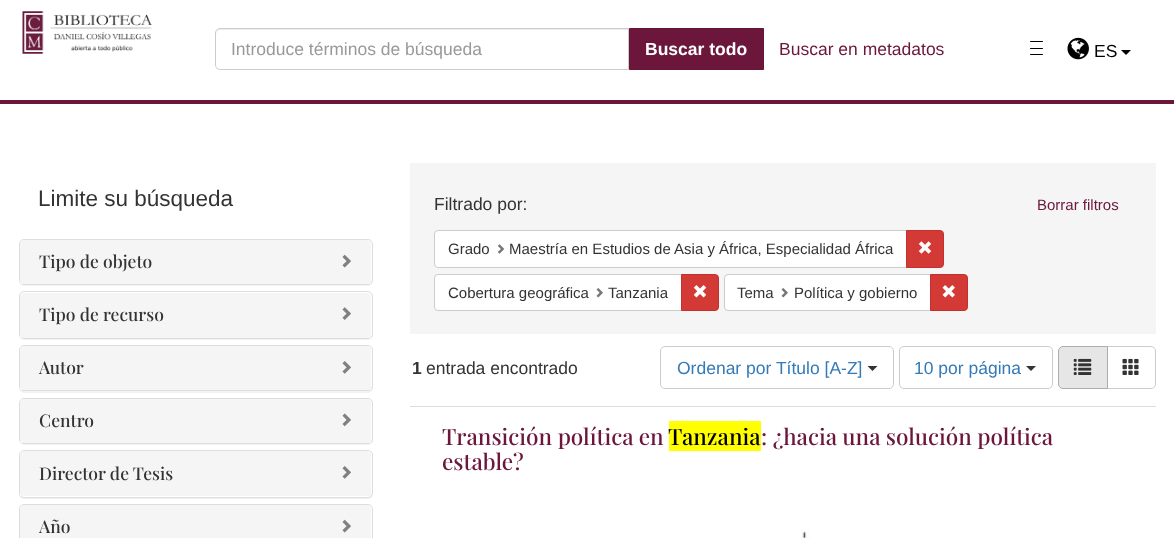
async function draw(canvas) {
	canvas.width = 1174;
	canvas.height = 538;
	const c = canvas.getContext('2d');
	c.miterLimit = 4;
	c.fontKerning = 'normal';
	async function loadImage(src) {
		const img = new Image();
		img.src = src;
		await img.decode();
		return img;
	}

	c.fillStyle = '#fff';
	c.fillRect(0, 0, 1174, 538);
	c.fillStyle = '#6b163a';
	c.fillRect(0, 100, 1174, 4);
	c.drawImage(await loadImage('img1.png'), 22, 11, 131, 43);
	c.fillStyle = '#ececec';
	c.beginPath();
	c.moveTo(220, 30);
	c.lineTo(628, 30);
	c.lineTo(628, 29);
	c.lineTo(220, 29);
	c.bezierCurveTo(218, 29, 216, 31, 216, 33);
	c.lineTo(216, 34);
	c.bezierCurveTo(216, 32, 218, 30, 220, 30);
	c.closePath();
	c.fill();
	c.beginPath();
	c.roundRect(215.5, 28.5, 413, 41, [4.5, 0, 0, 4.5]);
	c.strokeStyle = '#ccc';
	c.stroke();
	c.font = '17.5px Liberation Sans';
	c.fillStyle = '#999';
	c.fillText('Introduce términos de búsqueda', 231, 55);
	c.fillStyle = '#6b163a';
	c.beginPath();
	c.rect(629.5, 28.5, 134, 41);
	c.fill();
	c.strokeStyle = '#661537';
	c.stroke();
	c.font = 'bold 17.5px Liberation Sans';
	c.fillStyle = '#fff';
	c.fillText('Buscar todo', 645, 55);
	c.font = '17.5px Liberation Sans';
	c.fillStyle = '#6b163a';
	c.fillText('Buscar en metadatos', 779, 55);
	c.fillStyle = '#000';
	c.beginPath();
	c.roundRect(1030, 41, 13, 1, 0.5);
	c.fill();
	c.beginPath();
	c.roundRect(1030, 48, 13, 1, 0.5);
	c.fill();
	c.beginPath();
	c.roundRect(1030, 54, 13, 1, 0.5);
	c.fill();
	c.drawImage(await loadImage('img2.png'), 1067, 37, 22, 23);
	c.fillText('ES', 1094, 57);
	c.beginPath();
	c.moveTo(1121, 50);
	c.lineTo(1131, 50);
	c.lineTo(1126, 55);
	c.closePath();
	c.fill();
	c.font = '22.5px Liberation Sans';
	c.fillStyle = '#333';
	c.fillText('Limite su búsqueda', 38, 206);
	c.fillStyle = '#0000000d';
	c.filter = 'blur(0.5px)';
	c.beginPath();
	c.roundRect(19, 240, 354, 46, 5);
	c.fill();
	c.filter = 'none';
	c.fillStyle = '#fff';
	c.beginPath();
	c.roundRect(19.5, 239.5, 353, 45, 4.5);
	c.fill();
	c.strokeStyle = '#ddd';
	c.stroke();
	c.fillStyle = '#f5f5f5';
	c.beginPath();
	c.roundRect(20, 240, 351, 44, [4, 4, 0, 0]);
	c.fill();
	c.font = '500 17.5px Playfair Display';
	c.fillStyle = '#333';
	c.fillText('Tipo de objeto', 39, 268);
	c.drawImage(await loadImage('img3.png'), 342, 254, 9, 14);
	c.fillStyle = '#0000000d';
	c.filter = 'blur(0.5px)';
	c.beginPath();
	c.roundRect(19, 293, 354, 47, 5);
	c.fill();
	c.filter = 'none';
	c.fillStyle = '#fff';
	c.beginPath();
	c.roundRect(19.5, 291.5, 353, 47, 4.5);
	c.fill();
	c.stroke();
	c.fillStyle = '#f5f5f5';
	c.beginPath();
	c.roundRect(20, 293, 351, 45, [4, 4, 0, 0]);
	c.fill();
	c.fillStyle = '#333';
	c.fillText('Tipo de recurso', 39, 321);
	c.drawImage(await loadImage('img4.png'), 342, 307, 9, 13);
	c.fillStyle = '#0000000d';
	c.filter = 'blur(0.5px)';
	c.beginPath();
	c.roundRect(19, 346, 354, 47, 5);
	c.fill();
	c.filter = 'none';
	c.fillStyle = '#fff';
	c.beginPath();
	c.roundRect(19.5, 345.5, 353, 45, 4.5);
	c.fill();
	c.stroke();
	c.fillStyle = '#f5f5f5';
	c.beginPath();
	c.roundRect(20, 346, 351, 44, [4, 4, 0, 0]);
	c.fill();
	c.fillStyle = '#333';
	c.fillText('Autor', 39, 374);
	c.drawImage(await loadImage('img5.png'), 342, 361, 9, 13);
	c.fillStyle = '#0000000d';
	c.filter = 'blur(0.5px)';
	c.beginPath();
	c.roundRect(19, 399, 354, 46, 5);
	c.fill();
	c.filter = 'none';
	c.fillStyle = '#fff';
	c.beginPath();
	c.roundRect(19.5, 398.5, 353, 45, 4.5);
	c.fill();
	c.stroke();
	c.fillStyle = '#f5f5f5';
	c.beginPath();
	c.roundRect(20, 399, 351, 44, [4, 4, 0, 0]);
	c.fill();
	c.fillStyle = '#333';
	c.fillText('Centro', 39, 427);
	c.drawImage(await loadImage('img6.png'), 342, 413, 9, 14);
	c.fillStyle = '#0000000d';
	c.filter = 'blur(0.5px)';
	c.beginPath();
	c.roundRect(19, 451, 354, 48, 5);
	c.fill();
	c.filter = 'none';
	c.fillStyle = '#fff';
	c.beginPath();
	c.roundRect(19.5, 450.5, 353, 47, 4.5);
	c.fill();
	c.stroke();
	c.fillStyle = '#f5f5f5';
	c.beginPath();
	c.roundRect(20, 451, 351, 45, [4, 4, 0, 0]);
	c.fill();
	c.fillStyle = '#333';
	c.fillText('Director de Tesis', 39, 480);
	c.drawImage(await loadImage('img5.png'), 342, 466, 9, 13);
	c.beginPath();
	c.roundRect(19.5, 504.5, 353, 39, 4.5);
	c.stroke();
	c.fillStyle = '#f5f5f5';
	c.beginPath();
	c.moveTo(24, 505);
	c.lineTo(367, 505);
	c.bezierCurveTo(369, 505, 371, 507, 371, 509);
	c.lineTo(371, 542);
	c.lineTo(20, 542);
	c.lineTo(20, 509);
	c.bezierCurveTo(20, 507, 22, 505, 24, 505);
	c.closePath();
	c.fill();
	c.fillStyle = '#333';
	c.fillText('Año', 39, 533);
	c.drawImage(await loadImage('img3.png'), 342, 519, 9, 14);
	c.fillStyle = '#f5f5f5';
	c.fillRect(410, 163, 746, 171);
	c.font = '17.5px Liberation Sans';
	c.fillStyle = '#333';
	c.fillText('Filtrado por:', 434, 210);
	c.font = '15px Liberation Sans';
	c.fillStyle = '#6b163a';
	c.fillText('Borrar filtros', 1037, 210);
	c.fillStyle = '#fff';
	c.beginPath();
	c.roundRect(434.5, 230.5, 473, 37, [3.5, 0, 0, 3.5]);
	c.fill();
	c.strokeStyle = '#ccc';
	c.stroke();
	c.fillStyle = '#333';
	c.fillText('Grado', 448, 254);
	c.drawImage(await loadImage('img7.png'), 497, 244, 8, 10);
	c.fillText('Maestría en Estudios de Asia y África, Especialidad África', 509, 254);
	c.fillStyle = '#d33a35';
	c.beginPath();
	c.roundRect(906.5, 230.5, 37, 37, [0, 3.5, 3.5, 0]);
	c.fill();
	c.strokeStyle = '#c4302b';
	c.stroke();
	c.drawImage(await loadImage('img8.png'), 918, 241, 14, 13);
	c.fillStyle = '#fff';
	c.beginPath();
	c.roundRect(434.5, 274.5, 248, 36, [3.5, 0, 0, 3.5]);
	c.fill();
	c.strokeStyle = '#ccc';
	c.stroke();
	c.fillStyle = '#333';
	c.fillText('Cobertura geográfica', 448, 298);
	c.drawImage(await loadImage('img9.png'), 596, 288, 7, 10);
	c.fillText('Tanzania', 608, 298);
	c.fillStyle = '#d33a35';
	c.beginPath();
	c.roundRect(681.5, 274.5, 37, 36, [0, 3.5, 3.5, 0]);
	c.fill();
	c.strokeStyle = '#c4302b';
	c.stroke();
	c.drawImage(await loadImage('img10.png'), 693, 285, 14, 13);
	c.fillStyle = '#fff';
	c.beginPath();
	c.roundRect(724.5, 274.5, 206, 36, [3.5, 0, 0, 3.5]);
	c.fill();
	c.strokeStyle = '#ccc';
	c.stroke();
	c.fillStyle = '#333';
	c.fillText('Tema', 737, 298);
	c.drawImage(await loadImage('img9.png'), 781, 288, 7, 10);
	c.fillText('Política y gobierno', 794, 298);
	c.fillStyle = '#d33a35';
	c.beginPath();
	c.roundRect(930.5, 274.5, 37, 36, [0, 3.5, 3.5, 0]);
	c.fill();
	c.strokeStyle = '#c4302b';
	c.stroke();
	c.drawImage(await loadImage('img11.png'), 942, 285, 13, 13);
	c.fillStyle = '#ddd';
	c.fillRect(410, 406, 746, 1);
	c.font = 'bold 17.5px Liberation Sans';
	c.fillStyle = '#333';
	c.fillText('1', 412, 374);
	c.font = '17.5px Liberation Sans';
	c.fillText('entrada encontrado', 426, 374);
	c.beginPath();
	c.roundRect(660.5, 346.5, 233, 42, 4.5);
	c.strokeStyle = '#ccc';
	c.stroke();
	c.fillStyle = '#337ab7';
	c.fillText('Ordenar por Título [A-Z]', 677, 374);
	c.fillStyle = '#333';
	c.beginPath();
	c.moveTo(867.5, 366);
	c.lineTo(877.5, 366);
	c.lineTo(872.5, 371);
	c.closePath();
	c.fill();
	c.beginPath();
	c.roundRect(899.5, 346.5, 153, 42, 4.5);
	c.stroke();
	c.fillStyle = '#337ab7';
	c.fillText('10 por página', 914, 374);
	c.fillStyle = '#333';
	c.beginPath();
	c.moveTo(1026, 366);
	c.lineTo(1036, 366);
	c.lineTo(1031, 371);
	c.closePath();
	c.fill();
	c.beginPath();
	c.roundRect(1106.5, 346.5, 49, 42, [0, 4.5, 4.5, 0]);
	c.stroke();
	c.fillStyle = '#e6e6e6';
	c.beginPath();
	c.roundRect(1058.5, 346.5, 49, 42, [4.5, 0, 0, 4.5]);
	c.fill();
	c.strokeStyle = '#adadad';
	c.stroke();
	c.drawImage(await loadImage('img12.png'), 1073, 358, 19, 17);
	c.drawImage(await loadImage('img13.png'), 1122, 358, 17, 17);
	c.font = '500 22.5px Playfair Display';
	c.fillStyle = '#6b163a';
	c.fillText('Transición política en', 442, 445);
	c.fillStyle = '#ff0';
	c.fillRect(669, 421, 92, 30);
	c.fillStyle = '#000';
	c.fillText('Tanzania', 668, 445);
	c.fillStyle = '#6b163a';
	c.fillText(': ¿hacia una solución política', 761, 445);
	c.fillText('estable?', 442, 470);
	c.drawImage(await loadImage('img14.png'), 802, 529, 8, 9);
}

draw(document.querySelector('canvas'));
